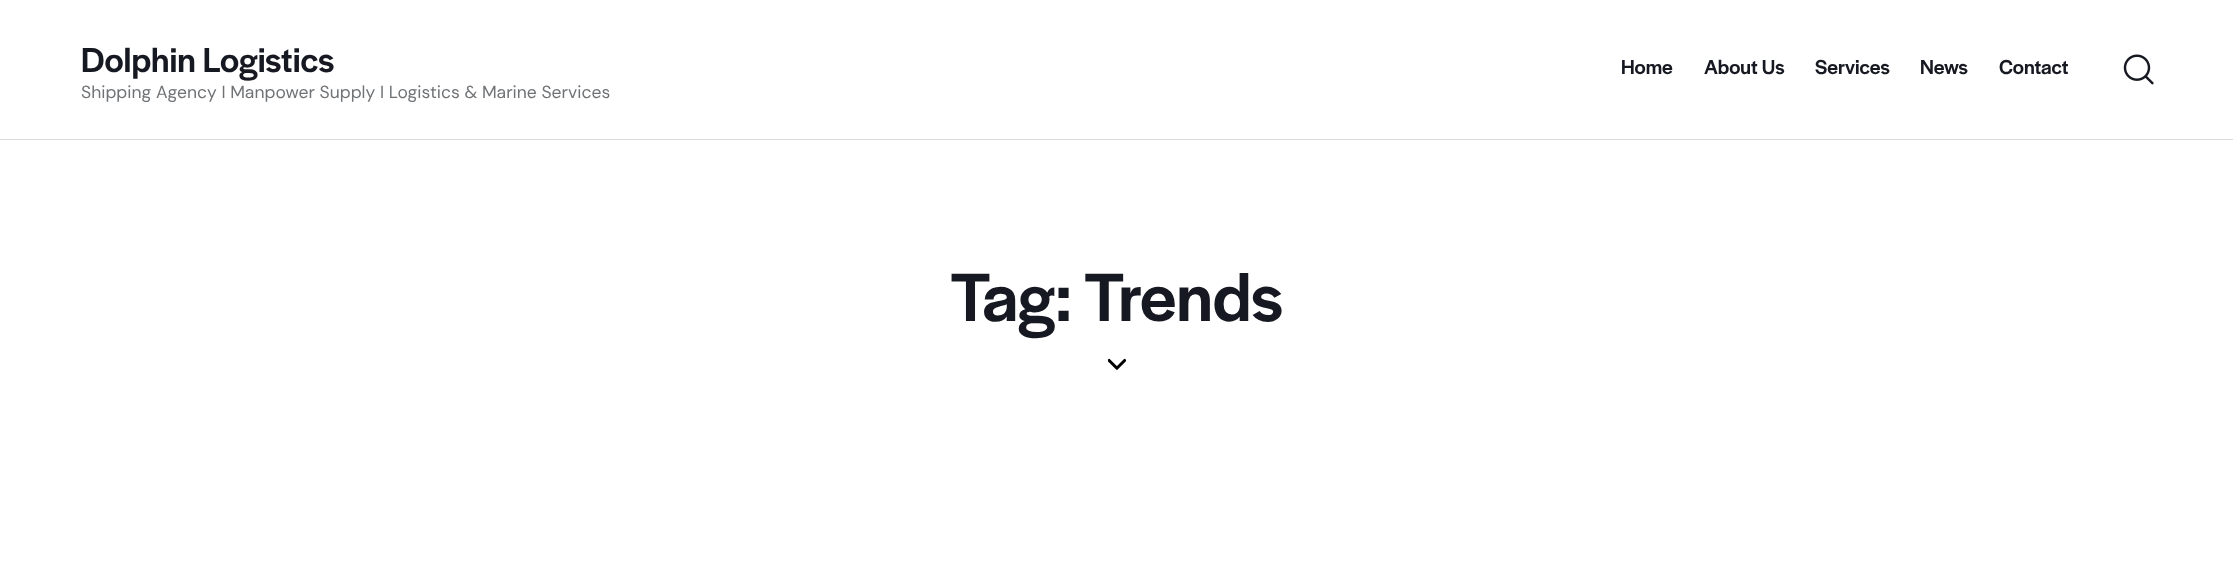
async function draw(canvas) {
	canvas.width = 2233;
	canvas.height = 564;
	const c = canvas.getContext('2d');
	c.miterLimit = 4;
	c.fontKerning = 'normal';
	async function loadImage(src) {
		const img = new Image();
		img.src = src;
		await img.decode();
		return img;
	}

	c.fillStyle = '#fff';
	c.fillRect(0, 0, 2233, 564);
	c.fillStyle = '#dbdbdb';
	c.fillRect(0, 139, 2233, 1);
	c.font = '500 36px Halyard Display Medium';
	c.fillStyle = '#161921';
	c.fillText('Dolphin Logistics', 81, 72);
	c.font = '17.5px DM Sans';
	c.fillStyle = '#707376';
	c.fillText('Shipping Agency I Manpower Supply I Logistics & Marine Services', 81, 98);
	c.font = '500 21px Halyard Display Medium';
	c.fillStyle = '#161921';
	for (const [text, x, y] of [
		['Home', 1621, 74],
		['About Us', 1704, 74],
		['Services', 1815, 74],
		['News', 1920, 74],
		['Contact', 1999, 74],
	]) {
		c.fillText(text, x, y);
	}
	c.drawImage(await loadImage('img1.png'), 2123, 54, 31, 31);
	c.font = '500 71.25px Halyard Display Medium';
	c.fillText('Tag: Trends', 950, 321);
	c.drawImage(await loadImage('img2.png'), 1108, 358, 18, 12);
}

draw(document.querySelector('canvas'));
